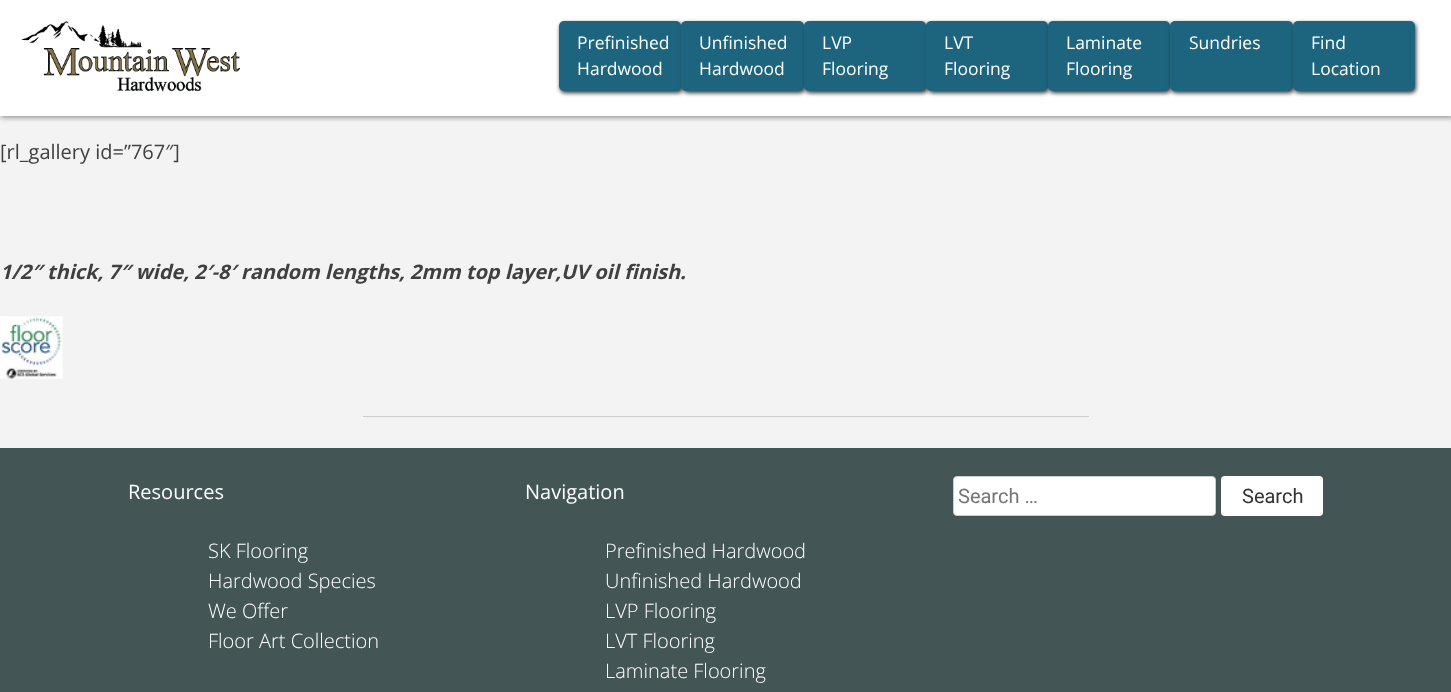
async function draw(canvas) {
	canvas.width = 1451;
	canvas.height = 692;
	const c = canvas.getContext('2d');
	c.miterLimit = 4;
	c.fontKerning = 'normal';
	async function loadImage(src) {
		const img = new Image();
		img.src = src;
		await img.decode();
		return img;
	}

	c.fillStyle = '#f3f3f3';
	c.fillRect(0, 0, 1451, 692);
	c.fillStyle = '#999';
	c.filter = 'blur(2.5px)';
	c.beginPath();
	c.rect(1, 1, 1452, 117);
	c.fill();
	c.filter = 'none';
	c.fillStyle = '#fff';
	c.fillRect(0, 0, 1451, 116);
	c.drawImage(await loadImage('img1.png'), 21, 21, 219, 71);
	c.fillStyle = '#333';
	c.filter = 'blur(2px)';
	c.beginPath();
	c.roundRect(560, 23, 123, 70, 5);
	c.fill();
	c.filter = 'none';
	c.fillStyle = '#1d657f';
	c.beginPath();
	c.roundRect(559, 21, 122, 70, 5);
	c.fill();
	c.font = '17.5px Open Sans';
	c.fillStyle = '#fff';
	c.fillText('Prefinished', 577, 49);
	c.fillText('Hardwood', 577, 75);
	c.fillStyle = '#333';
	c.filter = 'blur(2px)';
	c.beginPath();
	c.roundRect(683, 23, 122, 70, 5);
	c.fill();
	c.filter = 'none';
	c.fillStyle = '#1d657f';
	c.beginPath();
	c.roundRect(681, 21, 123, 70, 5);
	c.fill();
	c.fillStyle = '#fff';
	c.fillText('Unfinished', 699, 49);
	c.fillText('Hardwood', 699, 75);
	c.fillStyle = '#333';
	c.filter = 'blur(2px)';
	c.beginPath();
	c.roundRect(805, 23, 123, 70, 5);
	c.fill();
	c.filter = 'none';
	c.fillStyle = '#1d657f';
	c.beginPath();
	c.roundRect(804, 21, 122, 70, 5);
	c.fill();
	c.fillStyle = '#fff';
	c.fillText('LVP', 822, 49);
	c.fillText('Flooring', 822, 75);
	c.fillStyle = '#333';
	c.filter = 'blur(2px)';
	c.beginPath();
	c.roundRect(928, 23, 121, 70, 5);
	c.fill();
	c.filter = 'none';
	c.fillStyle = '#1d657f';
	c.beginPath();
	c.roundRect(926, 21, 122, 70, 5);
	c.fill();
	c.fillStyle = '#fff';
	c.fillText('LVT', 944, 49);
	c.fillText('Flooring', 944, 75);
	c.fillStyle = '#333';
	c.filter = 'blur(2px)';
	c.beginPath();
	c.roundRect(1049, 23, 122, 70, 5);
	c.fill();
	c.filter = 'none';
	c.fillStyle = '#1d657f';
	c.beginPath();
	c.roundRect(1048, 21, 122, 70, 5);
	c.fill();
	c.fillStyle = '#fff';
	c.fillText('Laminate', 1066, 49);
	c.fillText('Flooring', 1066, 75);
	c.fillStyle = '#333';
	c.filter = 'blur(2px)';
	c.beginPath();
	c.roundRect(1171, 23, 123, 70, 5);
	c.fill();
	c.filter = 'none';
	c.fillStyle = '#1d657f';
	c.beginPath();
	c.roundRect(1170, 21, 123, 70, 5);
	c.fill();
	c.fillStyle = '#fff';
	c.fillText('Sundries', 1189, 49);
	c.fillStyle = '#333';
	c.filter = 'blur(2px)';
	c.beginPath();
	c.roundRect(1294, 23, 122, 70, 5);
	c.fill();
	c.filter = 'none';
	c.fillStyle = '#1d657f';
	c.beginPath();
	c.roundRect(1293, 21, 122, 70, 5);
	c.fill();
	c.fillStyle = '#fff';
	c.fillText('Find', 1311, 49);
	c.fillText('Location', 1311, 75);
	c.font = '20px Open Sans';
	c.fillStyle = '#404040';
	c.fillText('[rl_gallery id=”767″]', 0, 159);
	c.font = 'italic bold 20px Open Sans';
	c.fillText('1/2″ thick, 7″ wide, 2′-8′ random lengths, 2mm top layer,UV oil finish.', 0, 279);
	c.drawImage(await loadImage('img2.png'), 0, 316, 63, 63);
	c.fillStyle = '#ccc';
	c.fillRect(363, 416, 726, 1);
	c.fillStyle = '#455';
	c.fillRect(0, 448, 1451, 244);
	c.font = '20px Open Sans';
	c.fillStyle = '#fff';
	c.fillText('Resources', 128, 499);
	c.font = '300 20px Open Sans';
	for (const [text, x, y] of [
		['SK Flooring', 208, 558],
		['Hardwood Species', 208, 588],
		['We Offer', 208, 618],
		['Floor Art Collection', 208, 648],
	]) {
		c.fillText(text, x, y);
	}
	c.font = '20px Open Sans';
	c.fillText('Navigation', 525, 499);
	c.font = '300 20px Open Sans';
	for (const [text, x, y] of [
		['Prefinished Hardwood', 605, 558],
		['Unfinished Hardwood', 605, 588],
		['LVP Flooring', 605, 618],
		['LVT Flooring', 605, 648],
		['Laminate Flooring', 605, 678],
	]) {
		c.fillText(text, x, y);
	}
	c.beginPath();
	c.roundRect(953.5, 476.5, 262, 39, 3.5);
	c.fill();
	c.strokeStyle = '#ccc';
	c.stroke();
	c.font = '20px Roboto';
	c.fillStyle = '#757575';
	c.fillText('Search …', 958, 503);
	c.fillStyle = '#fff';
	c.beginPath();
	c.roundRect(1221, 476, 102, 40, 4);
	c.fill();
	c.fillStyle = '#333';
	c.fillText('Search', 1242, 503);
}

draw(document.querySelector('canvas'));
